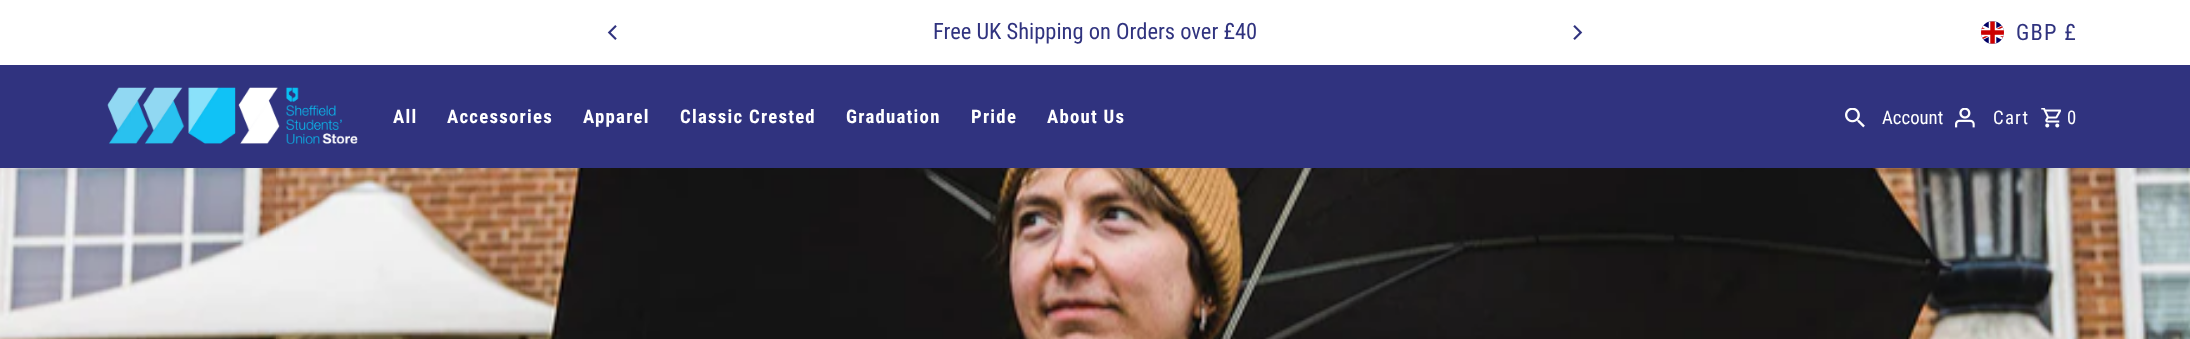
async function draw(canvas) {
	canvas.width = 2190;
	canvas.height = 339;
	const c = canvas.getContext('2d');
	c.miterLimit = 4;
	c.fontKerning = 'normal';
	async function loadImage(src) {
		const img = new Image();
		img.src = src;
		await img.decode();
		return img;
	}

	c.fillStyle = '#fff';
	c.fillRect(0, 0, 2190, 339);
	c.drawImage(await loadImage('img1.png'), 607, 25, 10, 15);
	c.font = '22.5px Roboto Condensed';
	c.fillStyle = '#30337f';
	c.fillText('Free UK Shipping on Orders over £40', 933, 39);
	c.drawImage(await loadImage('img2.png'), 1573, 25, 10, 15);
	c.drawImage(await loadImage('img3.png'), 1981, 21, 23, 23);
	c.letterSpacing = '1.25px';
	c.fillText('GBP £', 2016, 40);
	c.fillRect(0, 65, 2190, 103);
	c.drawImage(await loadImage('img4.png'), 107, 87, 251, 57);
	c.font = 'bold 18.75px Roboto Condensed';
	c.fillStyle = '#fff';
	for (const [text, x, y] of [
		['All', 393, 123],
		['Accessories', 447, 123],
		['Apparel', 583, 123],
		['Classic Crested', 680, 123],
		['Graduation', 846, 123],
		['Pride', 971, 123],
		['About Us', 1047, 123],
	]) {
		c.fillText(text, x, y);
	}
	c.drawImage(await loadImage('img5.png'), 1845, 108, 20, 20);
	c.letterSpacing = '0px';
	c.font = '18.75px Roboto Condensed';
	c.fillText('Account', 1882, 124);
	c.drawImage(await loadImage('img6.png'), 1955, 108, 20, 20);
	c.letterSpacing = '1.25px';
	c.fillText('Cart', 1993, 124);
	c.drawImage(await loadImage('img7.png'), 2041, 108, 20, 20);
	c.fillText('0', 2067, 124);
	c.drawImage(await loadImage('img8.png'), 0, 168, 2190, 171);
}

draw(document.querySelector('canvas'));
